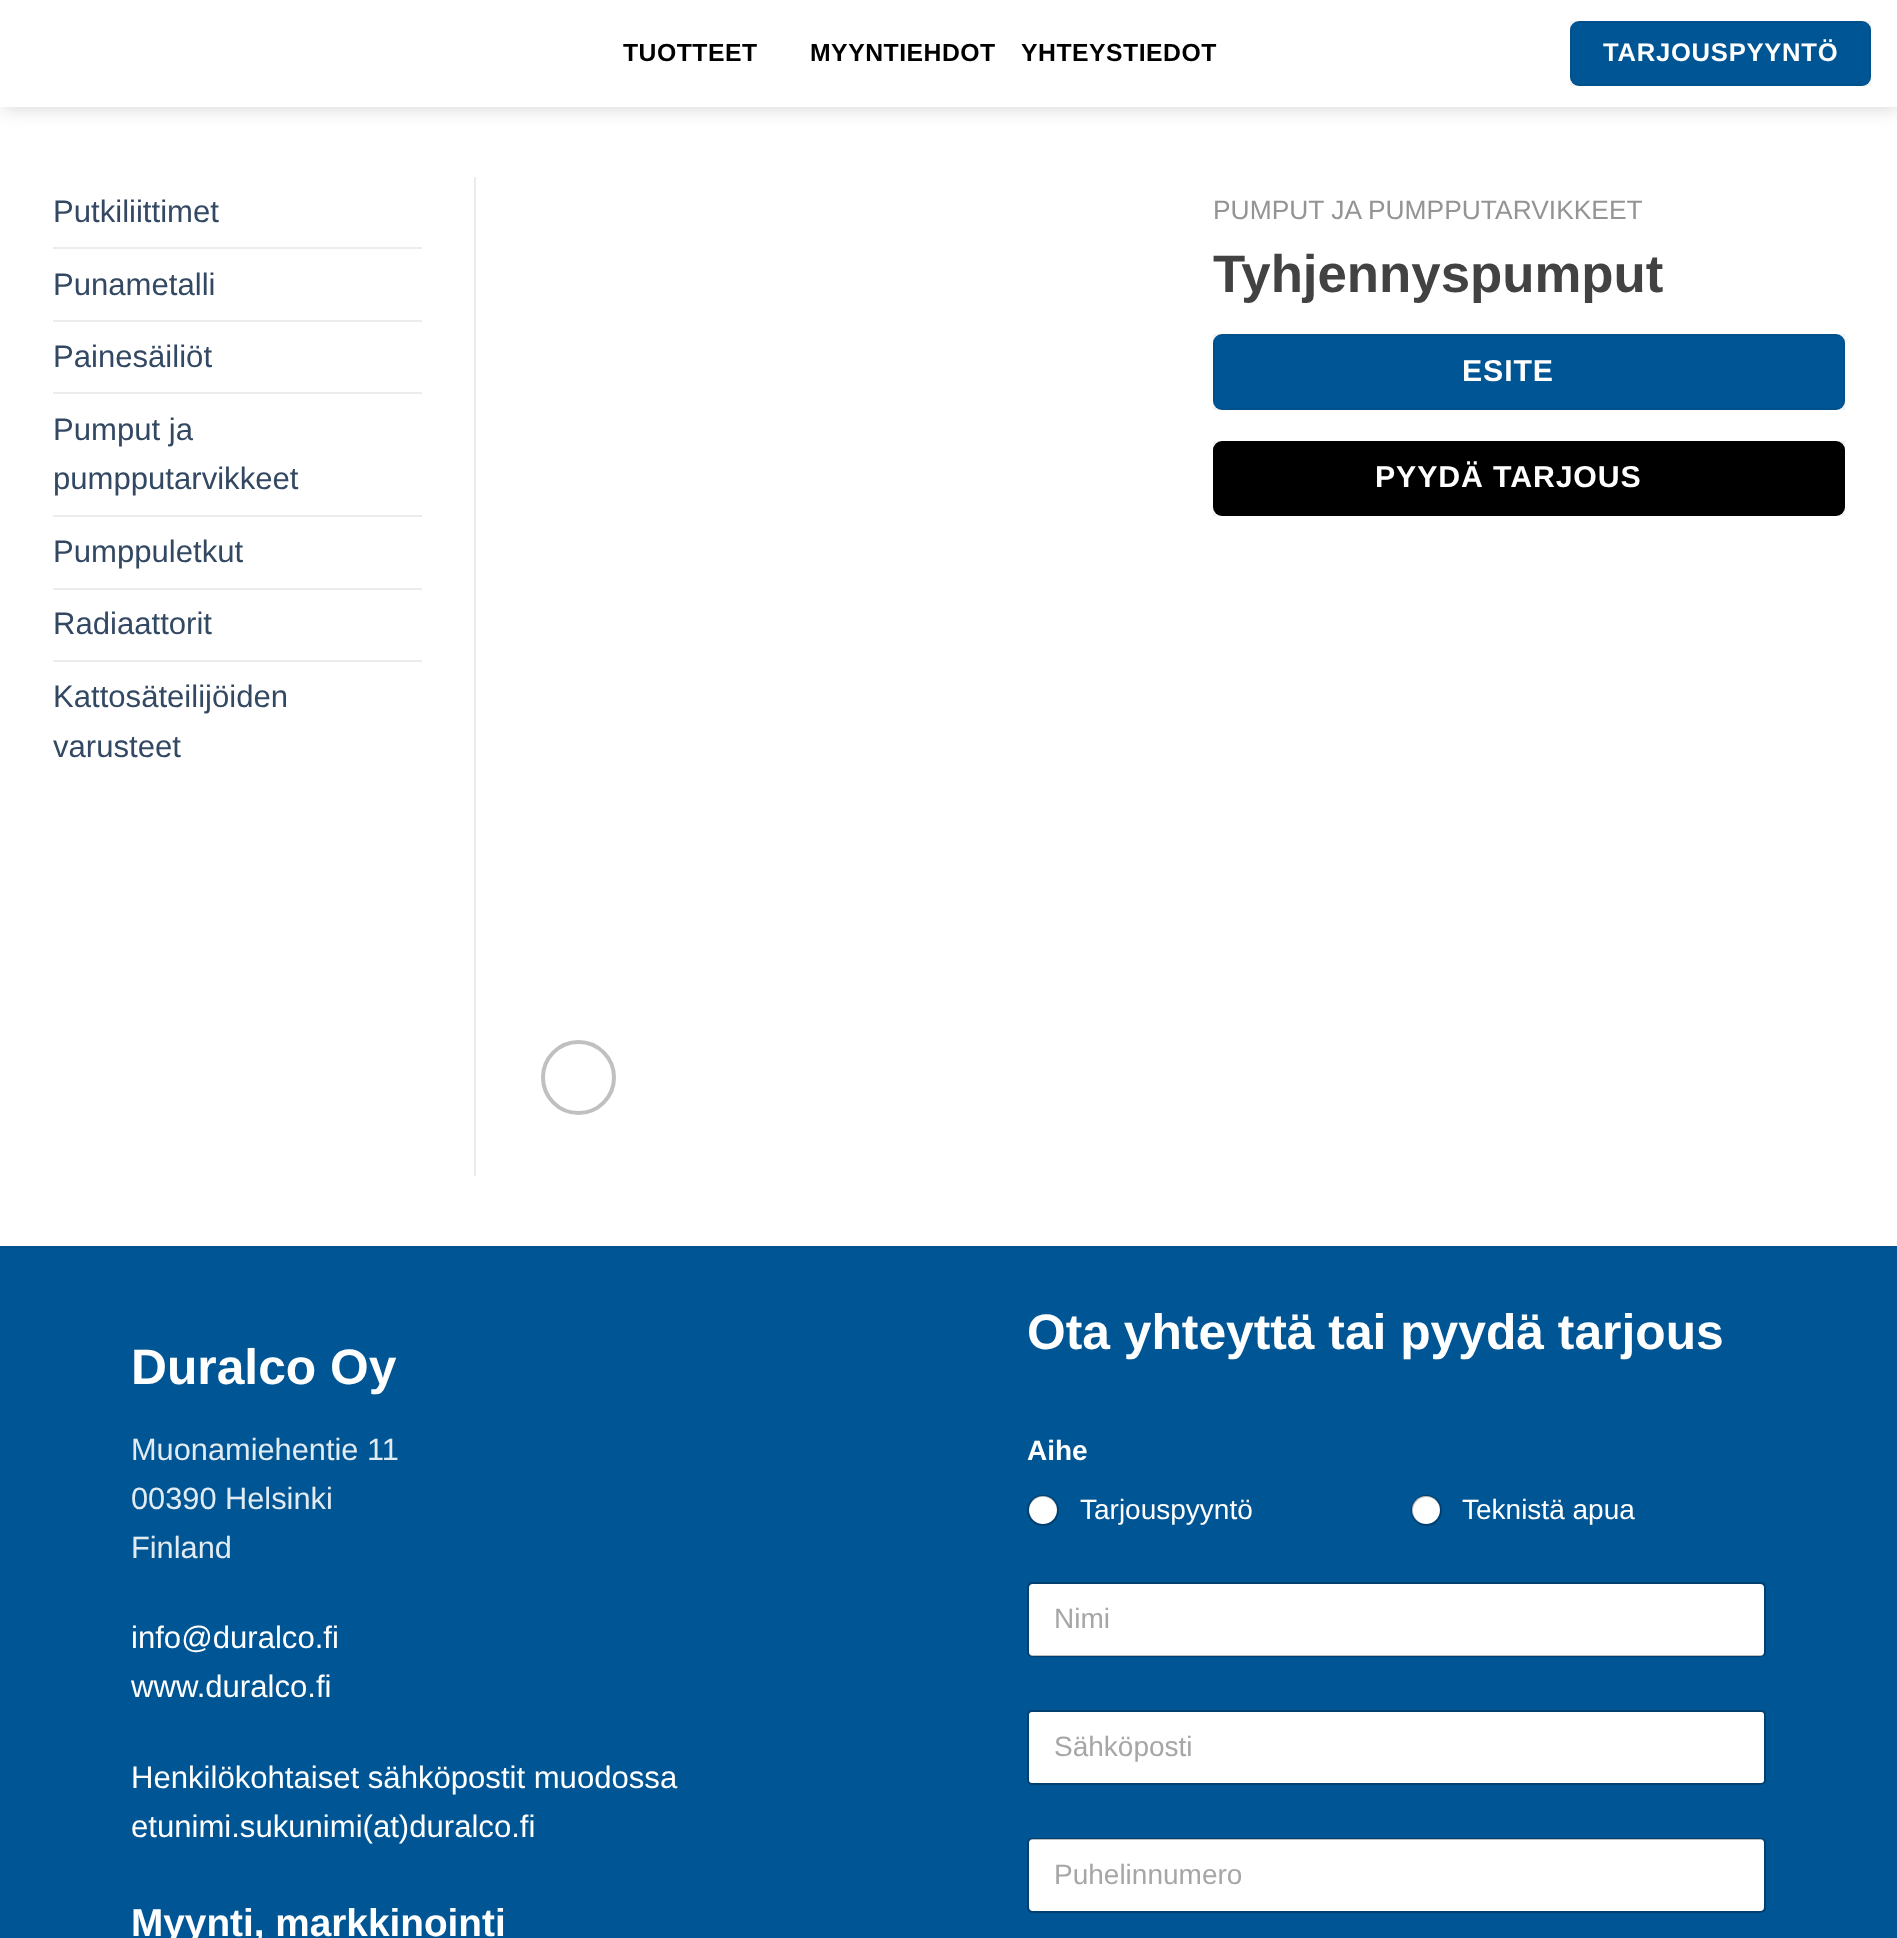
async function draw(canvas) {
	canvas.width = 1897;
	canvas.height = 1938;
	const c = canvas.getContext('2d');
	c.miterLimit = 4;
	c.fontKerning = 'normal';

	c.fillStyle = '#fff';
	c.fillRect(0, 0, 1897, 1938);
	c.fillStyle = '#00000026';
	c.filter = 'blur(9px)';
	c.beginPath();
	c.rect(2, 2, 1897, 107);
	c.fill();
	c.filter = 'none';
	c.fillStyle = '#fff';
	c.fillRect(0, 0, 1897, 107);
	c.letterSpacing = '0.5px';
	c.font = 'bold 24.75px Liberation Sans';
	c.fillStyle = '#000';
	for (const [text, x, y] of [
		['TUOTTEET', 623, 61],
		['MYYNTIEHDOT', 810, 61],
		['YHTEYSTIEDOT', 1021, 61],
	]) {
		c.fillText(text, x, y);
	}
	c.fillStyle = '#005594';
	c.beginPath();
	c.roundRect(1570, 21, 301, 65, 9);
	c.fill();
	c.strokeStyle = '#0000000d';
	c.lineWidth = 2;
	c.strokeRect(1571, 22, 299, 63);
	c.letterSpacing = '0.75px';
	c.font = 'bold 25.6px Liberation Sans';
	c.fillStyle = '#fff';
	c.fillText('TARJOUSPYYNTÖ', 1603, 61);
	c.letterSpacing = '0px';
	c.font = '31.1px Liberation Sans';
	c.fillStyle = '#334862';
	c.fillText('Putkiliittimet', 53, 222);
	c.fillStyle = '#ececec';
	c.fillRect(53, 247, 369, 2);
	c.fillStyle = '#334862';
	c.fillText('Punametalli', 53, 295);
	c.fillStyle = '#ececec';
	c.fillRect(53, 320, 369, 2);
	c.fillStyle = '#334862';
	c.fillText('Painesäiliöt', 53, 367);
	c.fillStyle = '#ececec';
	c.fillRect(53, 392, 369, 2);
	c.fillStyle = '#334862';
	c.fillText('Pumput ja', 53, 440);
	c.fillText('pumpputarvikkeet', 53, 489);
	c.fillStyle = '#ececec';
	c.fillRect(53, 515, 369, 2);
	c.fillStyle = '#334862';
	c.fillText('Pumppuletkut', 53, 562);
	c.fillStyle = '#ececec';
	c.fillRect(53, 588, 369, 2);
	c.fillStyle = '#334862';
	c.fillText('Radiaattorit', 53, 634);
	c.fillStyle = '#ececec';
	c.fillRect(53, 660, 369, 2);
	c.fillStyle = '#334862';
	c.fillText('Kattosäteilijöiden', 53, 707);
	c.fillText('varusteet', 53, 757);
	c.fillStyle = '#ececec';
	c.fillRect(474, 177, 2, 999);
	c.font = '26.4px Liberation Sans';
	c.fillStyle = '#949494';
	c.fillText('PUMPUT JA PUMPPUTARVIKKEET', 1213, 219);
	c.font = 'bold 52.75px Liberation Sans';
	c.fillStyle = '#424242';
	c.fillText('Tyhjennyspumput', 1213, 292);
	c.fillStyle = '#005594';
	c.beginPath();
	c.roundRect(1213, 334, 632, 76, 9);
	c.fill();
	c.strokeRect(1214, 335, 630, 74);
	c.letterSpacing = '0.9px';
	c.font = 'bold 30.25px Liberation Sans';
	c.fillStyle = '#fff';
	c.fillText('ESITE', 1462, 381);
	c.fillStyle = '#000';
	c.beginPath();
	c.roundRect(1213, 441, 632, 75, 9);
	c.fill();
	c.strokeRect(1214, 442, 630, 73);
	c.fillStyle = '#fff';
	c.fillText('PYYDÄ TARJOUS', 1375, 487);
	c.beginPath();
	c.arc(578.5, 1077.5, 35.5, 0, 2 * Math.PI);
	c.strokeStyle = '#c0c0c0';
	c.lineWidth = 4;
	c.stroke();
	c.fillStyle = '#005594';
	c.fillRect(0, 1248, 1897, 690);
	c.fillStyle = '#00518d';
	c.fillRect(0, 1246, 1897, 2);
	c.letterSpacing = '0px';
	c.font = 'bold 49.75px Liberation Sans';
	c.fillStyle = '#fff';
	c.fillText('Duralco Oy', 131, 1384);
	c.font = '30.75px Liberation Sans';
	c.fillStyle = '#e1ebf2';
	for (const [text, x, y] of [
		['Muonamiehentie 11', 131, 1460],
		['00390 Helsinki', 131, 1509],
		['Finland', 131, 1558],
	]) {
		c.fillText(text, x, y);
	}
	c.font = '31.1px Liberation Sans';
	c.fillStyle = '#fff';
	for (const [text, x, y] of [
		['info@duralco.fi', 131, 1648],
		['www.duralco.fi', 131, 1697],
		['Henkilökohtaiset sähköpostit muodossa', 131, 1788],
		['etunimi.sukunimi(at)duralco.fi', 131, 1837],
	]) {
		c.fillText(text, x, y);
	}
	c.font = 'bold 38.75px Liberation Sans';
	c.fillText('Myynti, markkinointi', 131, 1936);
	c.font = 'bold 49.75px Liberation Sans';
	c.fillText('Ota yhteyttä tai pyydä tarjous', 1027, 1349);
	c.font = 'bold 28px Liberation Sans';
	c.fillText('Aihe', 1027, 1460);
	c.beginPath();
	c.arc(1043, 1510, 14, 0, 2 * Math.PI);
	c.fill();
	c.beginPath();
	c.roundRect(1028, 1496, 30, 29, 14.5);
	c.strokeStyle = '#00000040';
	c.lineWidth = 2;
	c.stroke();
	c.font = '28px Liberation Sans';
	c.fillText('Tarjouspyyntö', 1080, 1519);
	c.beginPath();
	c.arc(1426, 1510, 14, 0, 2 * Math.PI);
	c.fill();
	c.beginPath();
	c.arc(1426.5, 1510.5, 14.5, 0, 2 * Math.PI);
	c.stroke();
	c.fillText('Teknistä apua', 1462, 1519);
	c.beginPath();
	c.roundRect(1029, 1584, 735, 72, 4);
	c.fill();
	c.beginPath();
	c.roundRect(1028, 1583, 737, 73, 4);
	c.stroke();
	c.fillStyle = '#a6a6a6';
	c.fillText('Nimi', 1054, 1628);
	c.fillStyle = '#fff';
	c.beginPath();
	c.roundRect(1028, 1711, 737, 73, 4);
	c.fill();
	c.strokeStyle = '#00406f';
	c.stroke();
	c.fillStyle = '#a6a6a6';
	c.fillText('Sähköposti', 1054, 1756);
	c.fillStyle = '#fff';
	c.beginPath();
	c.roundRect(1029, 1839, 735, 72, 4);
	c.fill();
	c.beginPath();
	c.roundRect(1028, 1839, 737, 73, 4);
	c.strokeStyle = '#00000040';
	c.stroke();
	c.fillStyle = '#a6a6a6';
	c.fillText('Puhelinnumero', 1054, 1884);
}

draw(document.querySelector('canvas'));
